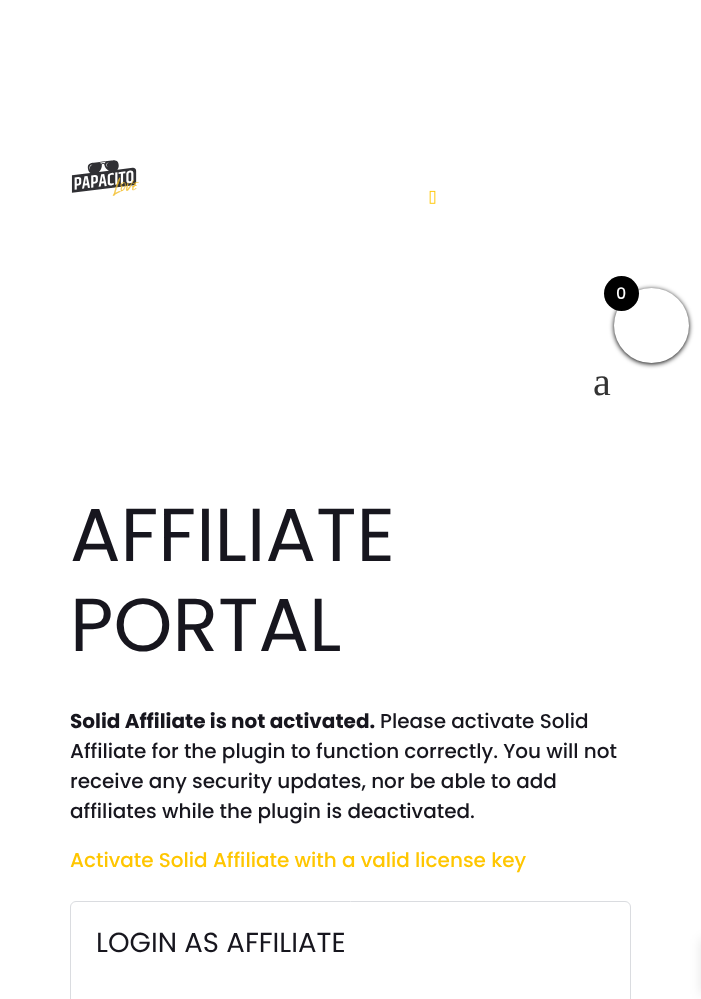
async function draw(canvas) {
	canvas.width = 701;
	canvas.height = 999;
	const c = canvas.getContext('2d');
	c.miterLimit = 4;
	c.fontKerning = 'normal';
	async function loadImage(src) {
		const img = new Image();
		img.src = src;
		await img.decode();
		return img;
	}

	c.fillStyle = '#fff';
	c.fillRect(0, 0, 701, 999);
	c.fillStyle = '#000';
	c.filter = 'blur(2.5px)';
	c.beginPath();
	c.roundRect(614, 289, 75, 75, 37.5);
	c.fill();
	c.filter = 'none';
	c.fillStyle = '#fff';
	c.beginPath();
	c.arc(651.5, 325.5, 37.5, 0, 2 * Math.PI);
	c.fill();
	c.fillStyle = '#000';
	c.beginPath();
	c.arc(621.5, 293.5, 17.5, 0, 2 * Math.PI);
	c.fill();
	c.font = '500 16px Poppins';
	c.fillStyle = '#fff';
	c.fillText('0', 616, 299);
	c.fillStyle = '#0000001a';
	c.filter = 'blur(6px)';
	c.beginPath();
	c.rect(701, 939, 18, 55);
	c.fill();
	c.filter = 'none';
	c.drawImage(await loadImage('img1.png'), 71, 160, 68, 36);
	c.drawImage(await loadImage('img2.png'), 429, 190, 7, 14);
	c.font = '40px Liberation Serif';
	c.fillStyle = '#333';
	c.fillText('a', 593, 395);
	c.font = '75px Poppins';
	c.fillStyle = '#17161e';
	c.fillText('AFFILIATE', 70, 561);
	c.fillText('PORTAL', 70, 651);
	c.font = 'bold 20px Poppins';
	c.fillText('Solid Affiliate is not activated.', 70, 728);
	c.font = '500 20px Poppins';
	for (const [text, x, y] of [
		['Please activate Solid', 380, 728],
		['Affiliate for the plugin to function correctly. You will not', 70, 758],
		['receive any security updates, nor be able to add', 70, 788],
		['affiliates while the plugin is deactivated.', 70, 818],
	]) {
		c.fillText(text, x, y);
	}
	c.fillStyle = '#ffc600';
	c.fillText('Activate Solid Affiliate with a valid license key', 70, 867);
	c.beginPath();
	c.roundRect(70.5, 901.5, 560, 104, 5.5);
	c.strokeStyle = '#dadce0';
	c.stroke();
	c.font = '27.5px Poppins';
	c.fillStyle = '#17161e';
	c.fillText('LOGIN AS AFFILIATE', 96, 952);
}

draw(document.querySelector('canvas'));
